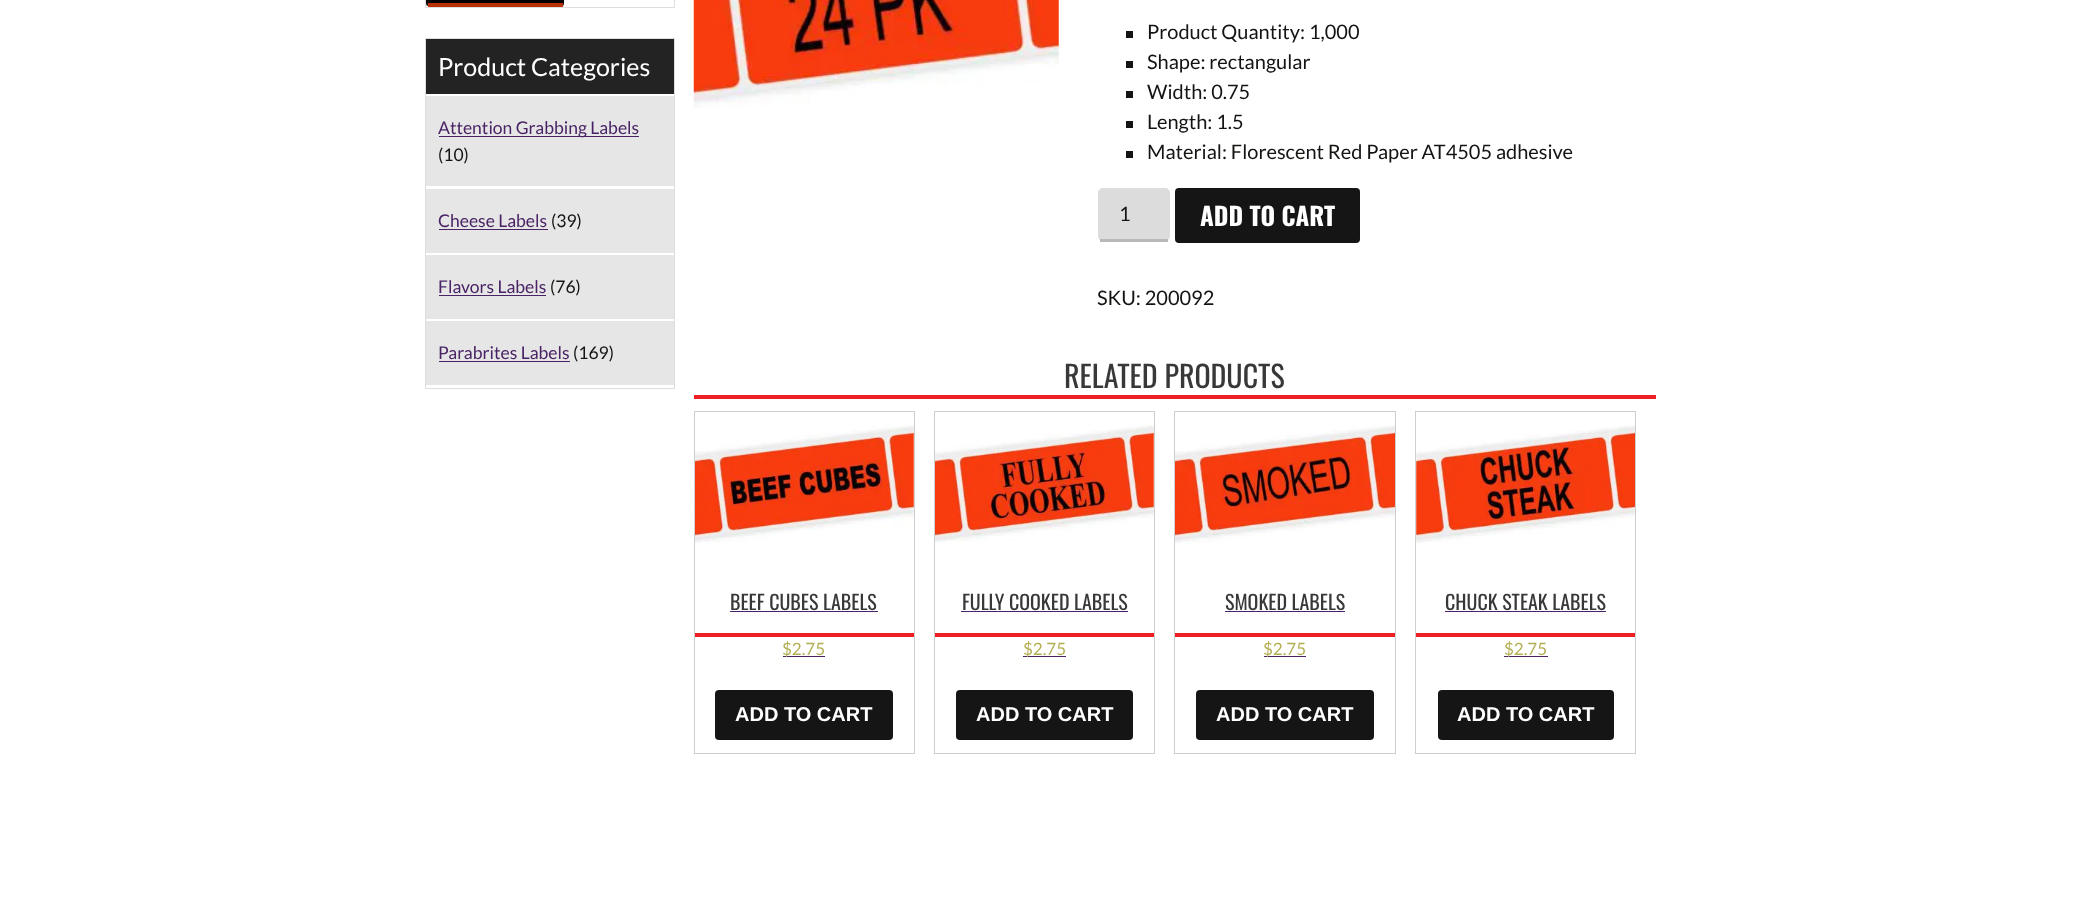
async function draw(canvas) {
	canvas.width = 2098;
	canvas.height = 897;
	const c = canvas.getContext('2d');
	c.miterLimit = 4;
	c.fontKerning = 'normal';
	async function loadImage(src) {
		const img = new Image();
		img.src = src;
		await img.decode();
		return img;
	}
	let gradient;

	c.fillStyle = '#fff';
	c.fillRect(0, 0, 2098, 897);
	c.strokeStyle = '#dedede';
	c.strokeRect(425.5, -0.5, 249, 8);
	gradient = c.createLinearGradient(495, -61, 495, 2.5);
	gradient.addColorStop(0, '#151515');
	gradient.addColorStop(1, '#000');
	c.fillStyle = gradient;
	c.fillRect(426, 0, 138, 3);
	gradient = c.createLinearGradient(495, 2.5, 495, 66);
	gradient.addColorStop(0, '#151515');
	gradient.addColorStop(1, '#000');
	c.fillStyle = gradient;
	c.beginPath();
	c.roundRect(426, 3, 138, 3, [0, 0, 2.5, 2.5]);
	c.fill();
	c.fillStyle = '#b93207';
	c.fillRect(428, 3, 135, 4);
	c.strokeRect(425.5, 38.5, 249, 350);
	c.fillStyle = '#242323';
	c.fillRect(426, 39, 248, 55);
	c.font = '25px Lato';
	c.fillStyle = '#fff';
	c.fillText('Product Categories', 438, 76);
	c.fillStyle = '#e6e6e6';
	c.fillRect(426, 96, 248, 90);
	c.fillStyle = '#492365';
	c.fillRect(439, 136, 200, 1);
	c.font = '17.5px Lato';
	c.fillText('Attention Grabbing Labels', 438, 134);
	c.fillStyle = '#141412';
	c.fillText('(10)', 438, 161);
	c.fillStyle = '#e6e6e6';
	c.fillRect(426, 189, 248, 64);
	c.fillStyle = '#492365';
	c.fillText('Cheese Labels', 438, 227);
	c.fillRect(439, 229, 109, 1);
	c.fillStyle = '#141412';
	c.fillText('(39)', 551, 227);
	c.fillStyle = '#e6e6e6';
	c.fillRect(426, 255, 248, 64);
	c.fillStyle = '#492365';
	c.fillText('Flavors Labels', 438, 293);
	c.fillRect(439, 295, 107, 1);
	c.fillStyle = '#141412';
	c.fillText('(76)', 550, 293);
	c.fillStyle = '#e6e6e6';
	c.fillRect(426, 321, 248, 64);
	c.fillStyle = '#492365';
	c.fillText('Parabrites Labels', 438, 359);
	c.fillRect(439, 361, 131, 1);
	c.fillStyle = '#141412';
	c.fillText('(169)', 573, 359);
	c.drawImage(await loadImage('img1.png'), 693, 0, 366, 108);
	c.fillRect(1126, 31, 7, 7);
	c.font = '20px Lato';
	c.fillText('Product Quantity: 1,000', 1147, 39);
	c.fillRect(1126, 61, 7, 7);
	c.fillText('Shape: rectangular', 1147, 69);
	c.fillRect(1126, 91, 7, 7);
	c.fillText('Width: 0.75', 1147, 99);
	c.fillRect(1126, 121, 7, 7);
	c.fillText('Length: 1.5', 1147, 129);
	c.fillRect(1126, 151, 7, 7);
	c.fillText('Material: Florescent Red Paper AT4505 adhesive', 1147, 159);
	c.fillStyle = '#dcdcdc';
	c.beginPath();
	c.roundRect(1098, 188, 72, 53, 5);
	c.fill();
	c.fillStyle = '#b9b8b8';
	c.fillRect(1100, 239, 68, 3);
	c.fillStyle = '#141412';
	c.fillText('1', 1119, 221);
	c.fillStyle = '#151515';
	c.beginPath();
	c.roundRect(1175, 188, 185, 55, 4);
	c.fill();
	c.font = 'bold 25px Oswald';
	c.fillStyle = '#fff';
	c.fillText('ADD TO CART', 1200, 226);
	c.font = '20px Lato';
	c.fillStyle = '#141412';
	c.fillText('SKU: 200092', 1097, 305);
	c.fillStyle = '#ed1f24';
	c.fillRect(694, 395, 962, 4);
	c.font = '30px Oswald';
	c.fillStyle = '#383838';
	c.fillText('RELATED PRODUCTS', 1064, 388);
	c.strokeStyle = '#cecece';
	c.strokeRect(694.5, 411.5, 220, 342);
	c.drawImage(await loadImage('img2.png'), 695, 425, 219, 119);
	c.fillStyle = '#ed1f24';
	c.fillRect(695, 633, 219, 4);
	c.font = '20px Oswald';
	c.fillStyle = '#383838';
	c.fillText('BEEF CUBES LABELS', 730, 610);
	c.fillStyle = '#492365';
	c.fillRect(730, 611, 148, 1);
	c.fillRect(783, 656, 42, 1);
	c.font = '17px Lato';
	c.fillStyle = '#b3af54';
	c.fillText('$2.75', 782, 655);
	c.fillStyle = '#151515';
	c.beginPath();
	c.roundRect(715, 690, 178, 50, 4);
	c.fill();
	c.font = 'bold 20px Liberation Sans';
	c.fillStyle = '#fff';
	c.fillText('ADD TO CART', 735, 721);
	c.strokeRect(934.5, 411.5, 220, 342);
	c.drawImage(await loadImage('img3.png'), 935, 425, 219, 118);
	c.fillStyle = '#ed1f24';
	c.fillRect(935, 633, 219, 4);
	c.font = '20px Oswald';
	c.fillStyle = '#383838';
	c.fillText('FULLY COOKED LABELS', 962, 610);
	c.fillStyle = '#492365';
	c.fillRect(961, 611, 167, 1);
	c.fillRect(1023, 656, 43, 1);
	c.font = '17px Lato';
	c.fillStyle = '#b3af54';
	c.fillText('$2.75', 1023, 655);
	c.fillStyle = '#151515';
	c.beginPath();
	c.roundRect(956, 690, 177, 50, 4);
	c.fill();
	c.font = 'bold 20px Liberation Sans';
	c.fillStyle = '#fff';
	c.fillText('ADD TO CART', 976, 721);
	c.strokeRect(1174.5, 411.5, 221, 342);
	c.drawImage(await loadImage('img4.png'), 1175, 425, 220, 119);
	c.fillStyle = '#ed1f24';
	c.fillRect(1175, 633, 220, 4);
	c.font = '20px Oswald';
	c.fillStyle = '#383838';
	c.fillText('SMOKED LABELS', 1225, 610);
	c.fillStyle = '#492365';
	c.fillRect(1225, 611, 120, 1);
	c.fillRect(1264, 656, 42, 1);
	c.font = '17px Lato';
	c.fillStyle = '#b3af54';
	c.fillText('$2.75', 1263, 655);
	c.fillStyle = '#151515';
	c.beginPath();
	c.roundRect(1196, 690, 178, 50, 4);
	c.fill();
	c.font = 'bold 20px Liberation Sans';
	c.fillStyle = '#fff';
	c.fillText('ADD TO CART', 1216, 721);
	c.strokeRect(1415.5, 411.5, 220, 342);
	c.drawImage(await loadImage('img5.png'), 1416, 425, 219, 118);
	c.fillStyle = '#ed1f24';
	c.fillRect(1416, 633, 219, 4);
	c.font = '20px Oswald';
	c.fillStyle = '#383838';
	c.fillText('CHUCK STEAK LABELS', 1445, 610);
	c.fillStyle = '#492365';
	c.fillRect(1445, 611, 161, 1);
	c.fillRect(1504, 656, 44, 1);
	c.font = '17px Lato';
	c.fillStyle = '#b3af54';
	c.fillText('$2.75', 1504, 655);
	c.fillStyle = '#151515';
	c.beginPath();
	c.roundRect(1438, 690, 176, 50, 4);
	c.fill();
	c.font = 'bold 20px Liberation Sans';
	c.fillStyle = '#fff';
	c.fillText('ADD TO CART', 1457, 721);
}

draw(document.querySelector('canvas'));
